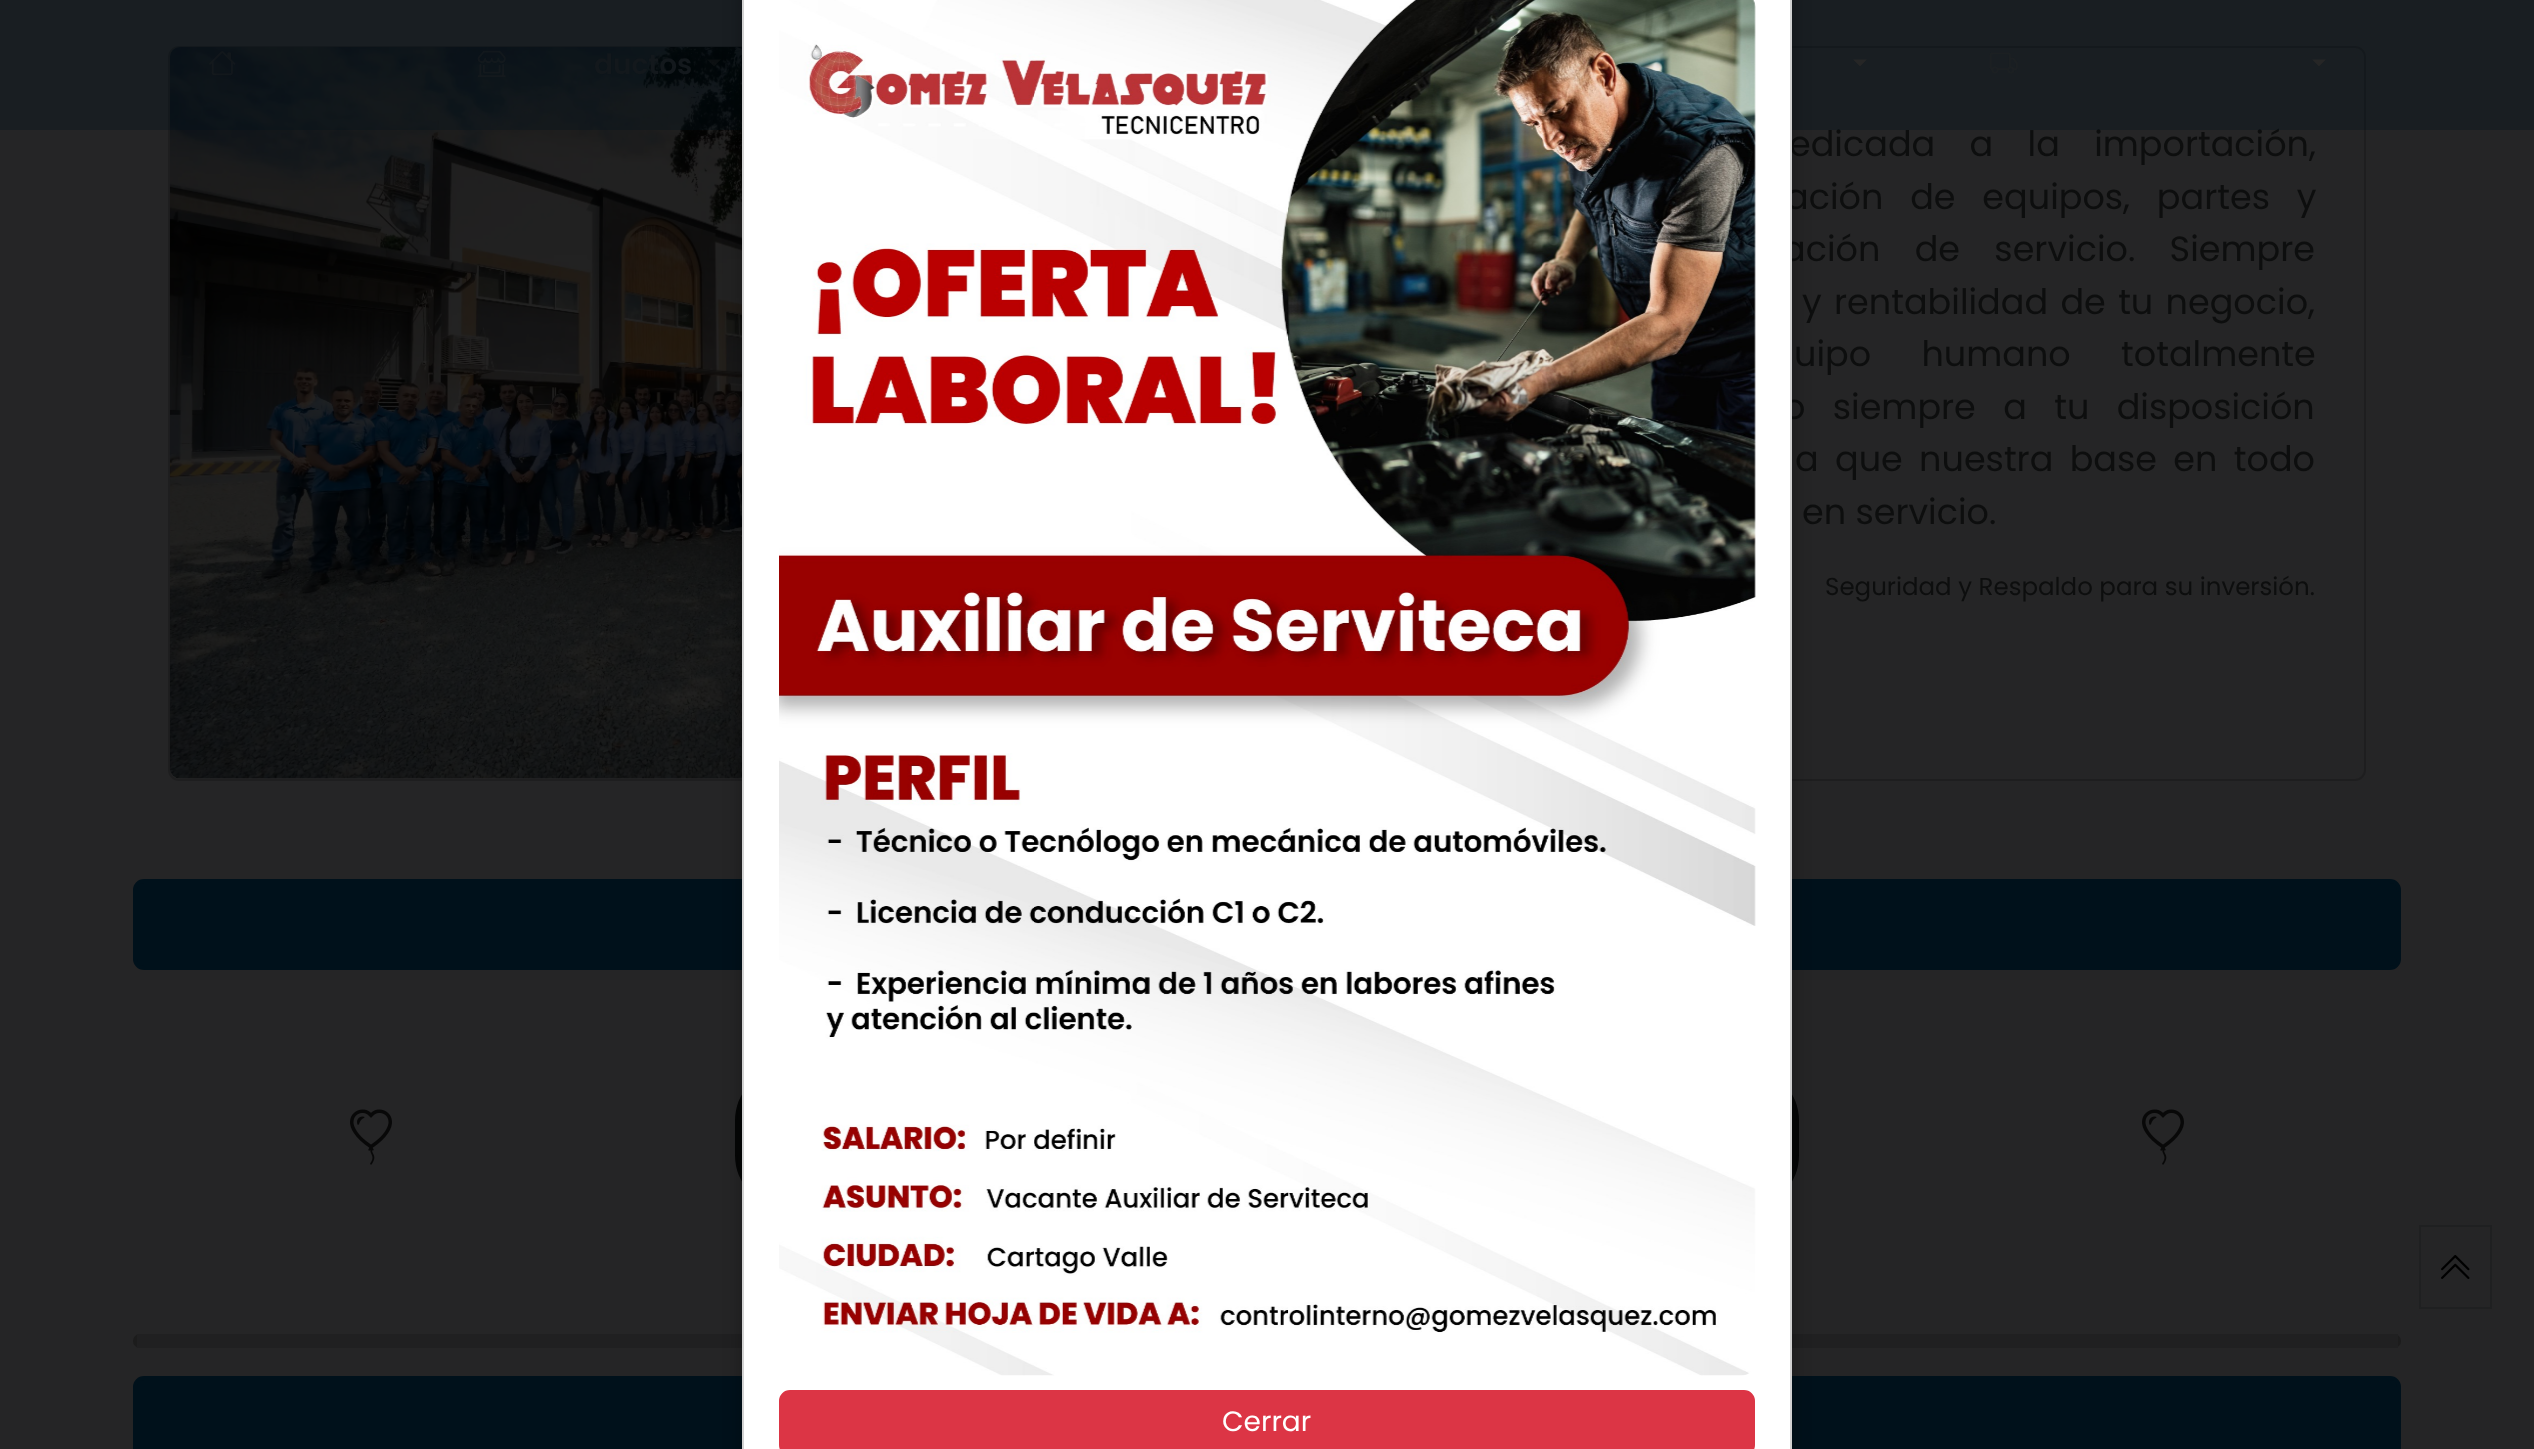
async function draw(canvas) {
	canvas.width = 2534;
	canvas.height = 1449;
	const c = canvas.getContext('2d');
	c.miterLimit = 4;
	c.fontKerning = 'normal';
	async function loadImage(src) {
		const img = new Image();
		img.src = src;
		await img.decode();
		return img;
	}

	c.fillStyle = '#252526';
	c.fillRect(0, 0, 2534, 1449);
	c.beginPath();
	c.roundRect(169, 47, 2196, 733, 10);
	c.strokeStyle = '#0000002e';
	c.lineWidth = 2;
	c.stroke();
	c.drawImage(await loadImage('img4.png'), 169, 47, 573, 732);
	c.wordSpacing = '25px';
	c.font = '35px Poppins';
	c.fillStyle = '#0d0e0e';
	c.fillText('edicada a la importación,', 1789, 156);
	c.fillStyle = '#00111b4d';
	c.fillRect(0, 0, 2534, 130);
	c.drawImage(await loadImage('img1.png'), 209, 51, 27, 25);
	c.drawImage(await loadImage('img2.png'), 477, 50, 29, 27);
	c.wordSpacing = '0px';
	c.font = '600 28px Poppins';
	c.fillStyle = '#13181c';
	c.fillText('ductos', 594, 74);
	c.fillStyle = '#2626264d';
	c.beginPath();
	c.moveTo(707, 59.5);
	c.lineTo(721, 59.5);
	c.lineTo(714, 66.5);
	c.closePath();
	c.fill();
	c.fillStyle = '#262626';
	c.beginPath();
	c.moveTo(1853, 59.5);
	c.lineTo(1867, 59.5);
	c.lineTo(1860, 66.5);
	c.closePath();
	c.fill();
	c.drawImage(await loadImage('img3.png'), 1989, 52, 29, 22);
	c.beginPath();
	c.moveTo(2312, 59.5);
	c.lineTo(2326, 59.5);
	c.lineTo(2319, 66.5);
	c.closePath();
	c.fill();
	c.wordSpacing = '17.5px';
	c.font = '35px Poppins';
	c.fillStyle = '#0d0e0e';
	c.fillText('ación de equipos, partes y', 1785, 209);
	c.wordSpacing = '25px';
	c.fillText('ación de servicio. Siempre', 1782, 261);
	c.wordSpacing = '3px';
	c.fillText('y rentabilidad de tu negocio,', 1802, 314);
	c.wordSpacing = '41px';
	c.fillText('uipo humano totalmente', 1794, 366);
	c.wordSpacing = '18px';
	c.fillText('o siempre a tu disposición', 1783, 419);
	c.wordSpacing = '7px';
	c.fillText('a que nuestra base en todo', 1795, 471);
	c.wordSpacing = '0px';
	c.fillText('en servicio.', 1802, 524);
	c.font = '24.5px Poppins';
	c.fillText('Seguridad y Respaldo para su inversión.', 1825, 595);
	c.fillStyle = '#00111b';
	c.beginPath();
	c.roundRect(135, 881, 2264, 87, 9);
	c.fill();
	c.strokeStyle = '#00111b';
	c.lineWidth = 4;
	c.stroke();
	c.drawImage(await loadImage('img5.png'), 350, 1109, 42, 56);
	c.fillStyle = '#050606';
	c.beginPath();
	c.roundRect(736, 1069, 1062, 138, 52);
	c.fill();
	c.strokeStyle = '#050606';
	c.lineWidth = 2;
	c.stroke();
	c.drawImage(await loadImage('img5.png'), 2142, 1109, 42, 56);
	c.fillStyle = '#1c1c1c';
	c.beginPath();
	c.roundRect(133, 1334, 2268, 14, 7);
	c.fill();
	c.fillStyle = '#202021';
	c.fillRect(137, 1334, 2261, 14);
	c.fillStyle = '#00111b';
	c.beginPath();
	c.roundRect(135, 1378, 2264, 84, 9);
	c.fill();
	c.strokeStyle = '#00111b';
	c.lineWidth = 4;
	c.stroke();
	c.fillStyle = '#0000004d';
	c.filter = 'blur(9px)';
	c.beginPath();
	c.roundRect(742, -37, 1050, 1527, 14);
	c.fill();
	c.filter = 'none';
	c.fillStyle = '#fff';
	c.beginPath();
	c.rect(743, -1, 1048, 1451);
	c.fill();
	c.strokeStyle = '#d2d2d2';
	c.lineWidth = 2;
	c.stroke();
	c.drawImage(await loadImage('img6.png'), 779, 0, 977, 1376);
	c.fillStyle = '#dc3545';
	c.beginPath();
	c.roundRect(780, 1391, 974, 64, 10);
	c.fill();
	c.strokeStyle = '#dc3545';
	c.stroke();
	c.font = '28px Poppins';
	c.fillStyle = '#fff';
	c.fillText('Cerrar', 1222, 1431);
	c.strokeStyle = '#1f2021';
	c.strokeRect(2420, 1226, 71, 82);
	c.drawImage(await loadImage('img7.png'), 2441, 1255, 29, 24);
}

draw(document.querySelector('canvas'));
